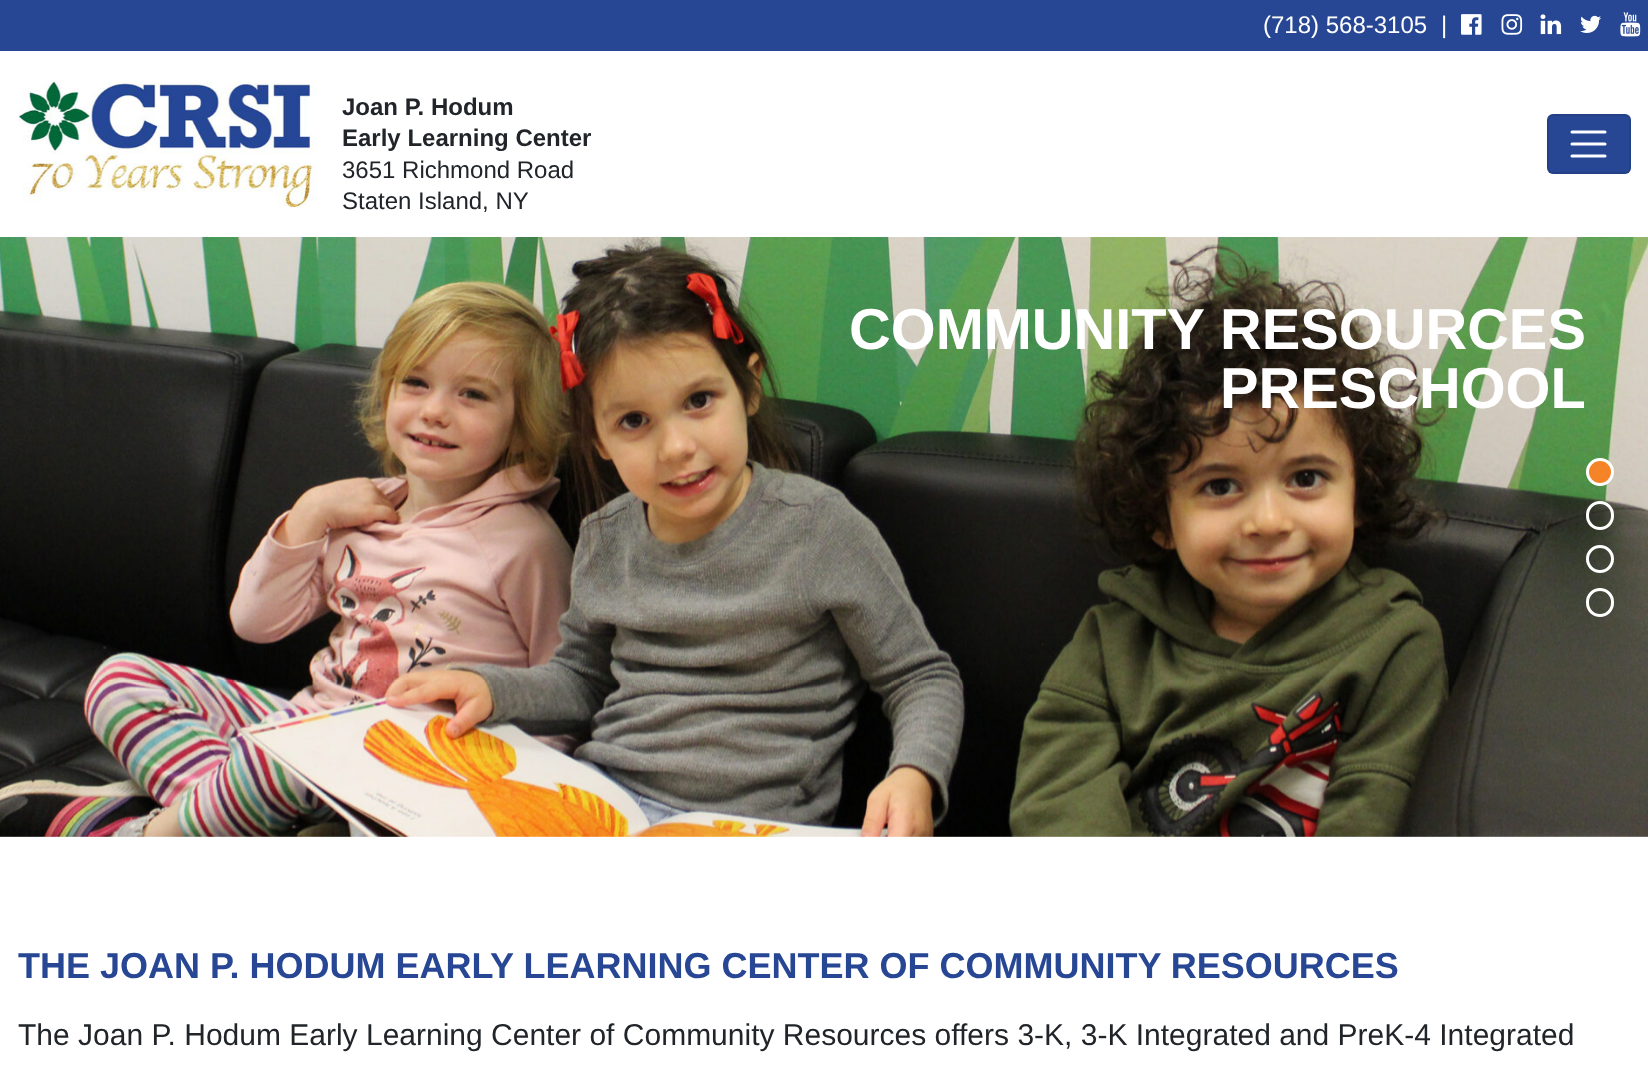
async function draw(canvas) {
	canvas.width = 1648;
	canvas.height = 1076;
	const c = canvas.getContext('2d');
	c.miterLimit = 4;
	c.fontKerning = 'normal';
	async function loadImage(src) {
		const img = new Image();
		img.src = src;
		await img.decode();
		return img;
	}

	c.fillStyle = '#fff';
	c.fillRect(0, 0, 1648, 1076);
	c.fillStyle = '#274795';
	c.fillRect(0, 0, 1648, 51);
	c.font = '24px Liberation Sans';
	c.fillStyle = '#fff';
	c.fillText('(718) 568-3105', 1263, 33);
	c.fillText('|', 1441, 33);
	c.drawImage(await loadImage('img1.png'), 1461, 14, 21, 21);
	c.drawImage(await loadImage('img2.png'), 1501, 14, 22, 21);
	c.drawImage(await loadImage('img3.png'), 1540, 14, 22, 21);
	c.drawImage(await loadImage('img4.png'), 1580, 15, 21, 18);
	c.drawImage(await loadImage('img5.png'), 1620, 12, 21, 25);
	c.drawImage(await loadImage('img6.png'), 18, 81, 298, 126);
	c.font = 'bold 24px Liberation Sans';
	c.fillStyle = '#212529';
	c.fillText('Joan P. Hodum', 342, 115);
	c.fillText('Early Learning Center', 342, 146);
	c.font = '24px Liberation Sans';
	c.fillText('3651 Richmond Road', 342, 178);
	c.fillText('Staten Island, NY', 342, 209);
	c.fillStyle = '#274795';
	c.beginPath();
	c.roundRect(1547, 114, 84, 60, 6);
	c.fill();
	c.beginPath();
	c.roundRect(1548, 115, 82, 58, 5);
	c.strokeStyle = '#0000001a';
	c.lineWidth = 2;
	c.stroke();
	c.beginPath();
	c.moveTo(1572, 132);
	c.lineTo(1605, 132);
	c.moveTo(1572, 144);
	c.lineTo(1605, 144);
	c.moveTo(1572, 156);
	c.lineTo(1605, 156);
	c.strokeStyle = '#fff';
	c.lineWidth = 3;
	c.lineCap = 'round';
	c.stroke();
	c.drawImage(await loadImage('img7.png'), 0, 237, 1648, 600);
	c.font = 'bold 57.75px Liberation Sans';
	c.fillStyle = '#fff';
	c.fillText('COMMUNITY RESOURCES', 849, 349);
	c.fillText('PRESCHOOL', 1220, 408);
	c.fillStyle = '#f58327';
	c.beginPath();
	c.arc(1600, 472, 12.5, 0, 2 * Math.PI);
	c.fill();
	c.stroke();
	c.beginPath();
	c.roundRect(1587.5, 502.5, 25, 26, 12.5);
	c.stroke();
	c.beginPath();
	c.arc(1600, 559, 12.5, 0, 2 * Math.PI);
	c.stroke();
	c.beginPath();
	c.roundRect(1587.5, 589.5, 25, 26, 12.5);
	c.stroke();
	c.font = 'bold 36px Liberation Sans';
	c.fillStyle = '#274795';
	c.fillText('THE JOAN P. HODUM EARLY LEARNING CENTER OF COMMUNITY RESOURCES', 18, 978);
	c.font = '30px Liberation Sans';
	c.fillStyle = '#212529';
	c.fillText('The Joan P. Hodum Early Learning Center of Community Resources offers 3-K, 3-K Integrated and PreK-4 Integrated', 18, 1045);
}

draw(document.querySelector('canvas'));
